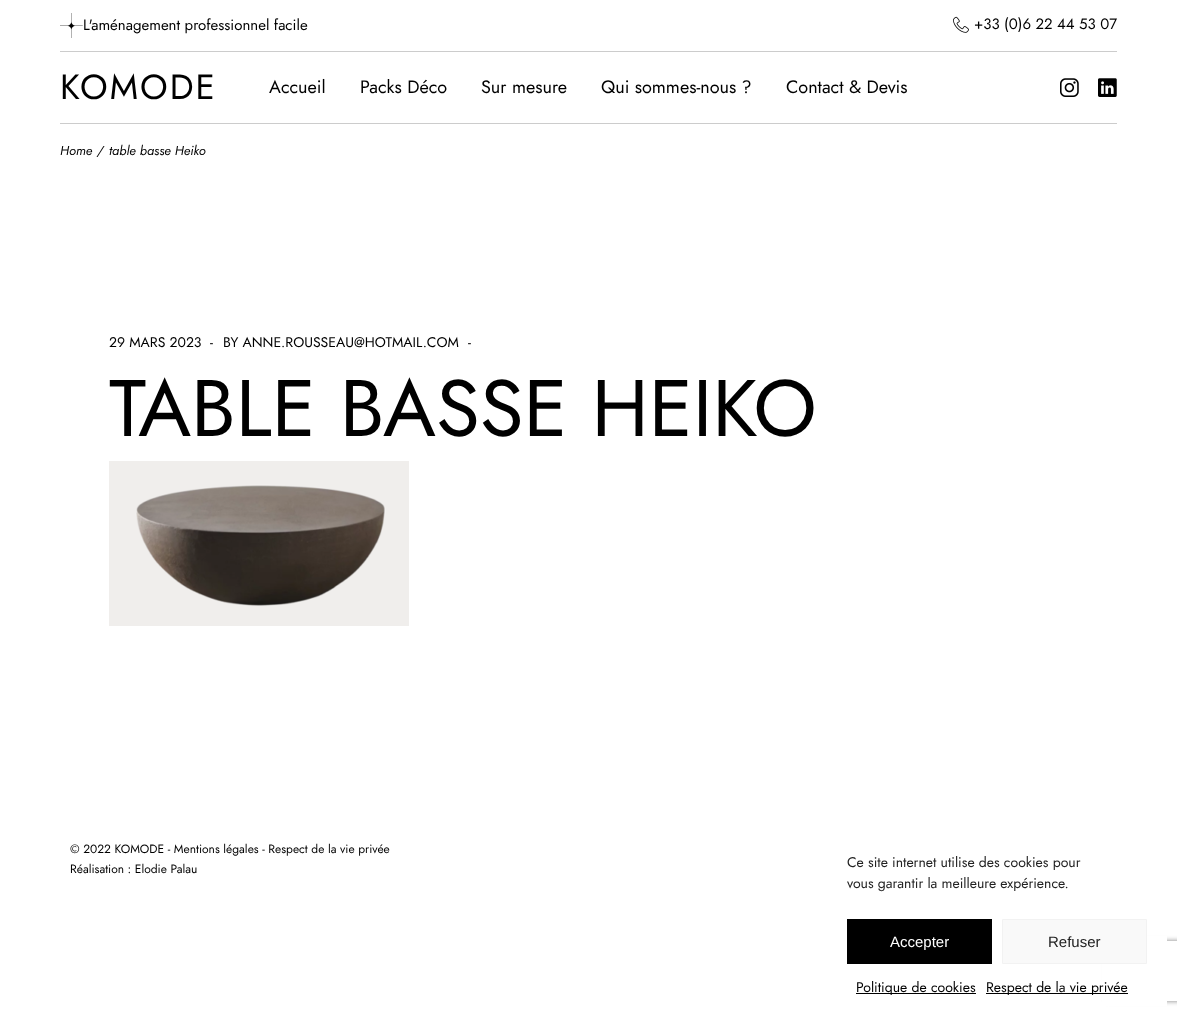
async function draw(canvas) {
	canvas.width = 1177;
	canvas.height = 1015;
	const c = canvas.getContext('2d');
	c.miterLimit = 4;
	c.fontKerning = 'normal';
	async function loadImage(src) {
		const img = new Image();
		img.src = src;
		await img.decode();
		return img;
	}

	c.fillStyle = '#fff';
	c.fillRect(0, 0, 1177, 1015);
	c.fillStyle = '#ccc';
	c.fillRect(60, 51, 1057, 1);
	c.drawImage(await loadImage('img1.png'), 60, 13, 23, 25);
	c.font = '15px Jost';
	c.fillStyle = '#000';
	c.fillText('L\'aménagement professionnel facile', 83, 30);
	c.drawImage(await loadImage('img2.png'), 953, 16, 16, 17);
	c.fillText('+33 (0)6 22 44 53 07', 974, 29);
	c.fillStyle = '#ccc';
	c.fillRect(60, 123, 1057, 1);
	c.letterSpacing = '2px';
	c.font = '35px Jost';
	c.fillStyle = '#000';
	c.fillText('KOMODE', 60, 99);
	c.letterSpacing = '0px';
	c.font = '18px Jost';
	for (const [text, x, y] of [
		['Accueil', 269, 93],
		['Packs Déco', 360, 93],
		['Sur mesure', 481, 93],
		['Qui sommes-nous ?', 601, 93],
		['Contact & Devis', 786, 93],
	]) {
		c.fillText(text, x, y);
	}
	c.drawImage(await loadImage('img3.png'), 1060, 78, 19, 19);
	c.drawImage(await loadImage('img4.png'), 1098, 78, 19, 19);
	c.font = 'italic 13px Jost';
	for (const [text, x, y] of [
		['Home', 60, 155],
		['/', 97, 155],
		['table basse Heiko', 109, 155],
	]) {
		c.fillText(text, x, y);
	}
	c.font = '14px Jost';
	for (const [text, x, y] of [
		['29 MARS 2023', 109, 347],
		['-', 210, 347],
		['BY ANNE.ROUSSEAU@HOTMAIL.COM', 223, 347],
		['-', 468, 347],
	]) {
		c.fillText(text, x, y);
	}
	c.font = '80px Jost';
	c.fillText('TABLE BASSE HEIKO', 109, 436);
	c.drawImage(await loadImage('img5.png'), 109, 461, 300, 165);
	c.font = '12px Jost';
	c.fillText('© 2022 KOMODE - Mentions légales - Respect de la vie privée', 70, 853);
	c.fillText('Réalisation : Elodie Palau', 70, 873);
	c.save();
	c.beginPath();
	c.moveTo(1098, 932);
	c.lineTo(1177, 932);
	c.lineTo(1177, 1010);
	c.lineTo(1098, 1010);
	c.closePath();
	c.moveTo(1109, 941);
	c.lineTo(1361, 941);
	c.bezierCurveTo(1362, 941, 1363, 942, 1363, 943);
	c.lineTo(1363, 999);
	c.bezierCurveTo(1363, 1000, 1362, 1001, 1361, 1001);
	c.lineTo(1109, 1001);
	c.bezierCurveTo(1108, 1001, 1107, 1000, 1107, 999);
	c.lineTo(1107, 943);
	c.bezierCurveTo(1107, 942, 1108, 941, 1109, 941);
	c.closePath();
	c.clip('evenodd');
	c.fillStyle = '#808080';
	c.filter = 'blur(2.5px)';
	c.beginPath();
	c.roundRect(1107, 941, 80, 60, 2);
	c.fill();
	c.filter = 'none';
	c.restore();
	c.fillStyle = '#fff';
	c.fillRect(1102, 936, 65, 70);
	c.font = '14px Jost';
	c.fillStyle = '#222';
	c.fillText('Ce site internet utilise des cookies pour', 847, 867);
	c.fillText('vous garantir la meilleure expérience.', 847, 888);
	c.fillStyle = '#000';
	c.fillRect(847, 919, 145, 45);
	c.font = '15px Liberation Sans';
	c.fillStyle = '#fff';
	c.fillText('Accepter', 890, 947);
	c.fillStyle = '#f9f9f9';
	c.beginPath();
	c.rect(1002.5, 919.5, 144, 44);
	c.fill();
	c.strokeStyle = '#f2f2f2';
	c.stroke();
	c.fillStyle = '#222';
	c.fillText('Refuser', 1048, 947);
	c.fillStyle = '#000';
	c.fillRect(856, 993, 120, 1);
	c.font = '14px Jost';
	c.fillText('Politique de cookies', 856, 992);
	c.fillRect(986, 993, 142, 1);
	c.fillText('Respect de la vie privée', 986, 992);
}

draw(document.querySelector('canvas'));
